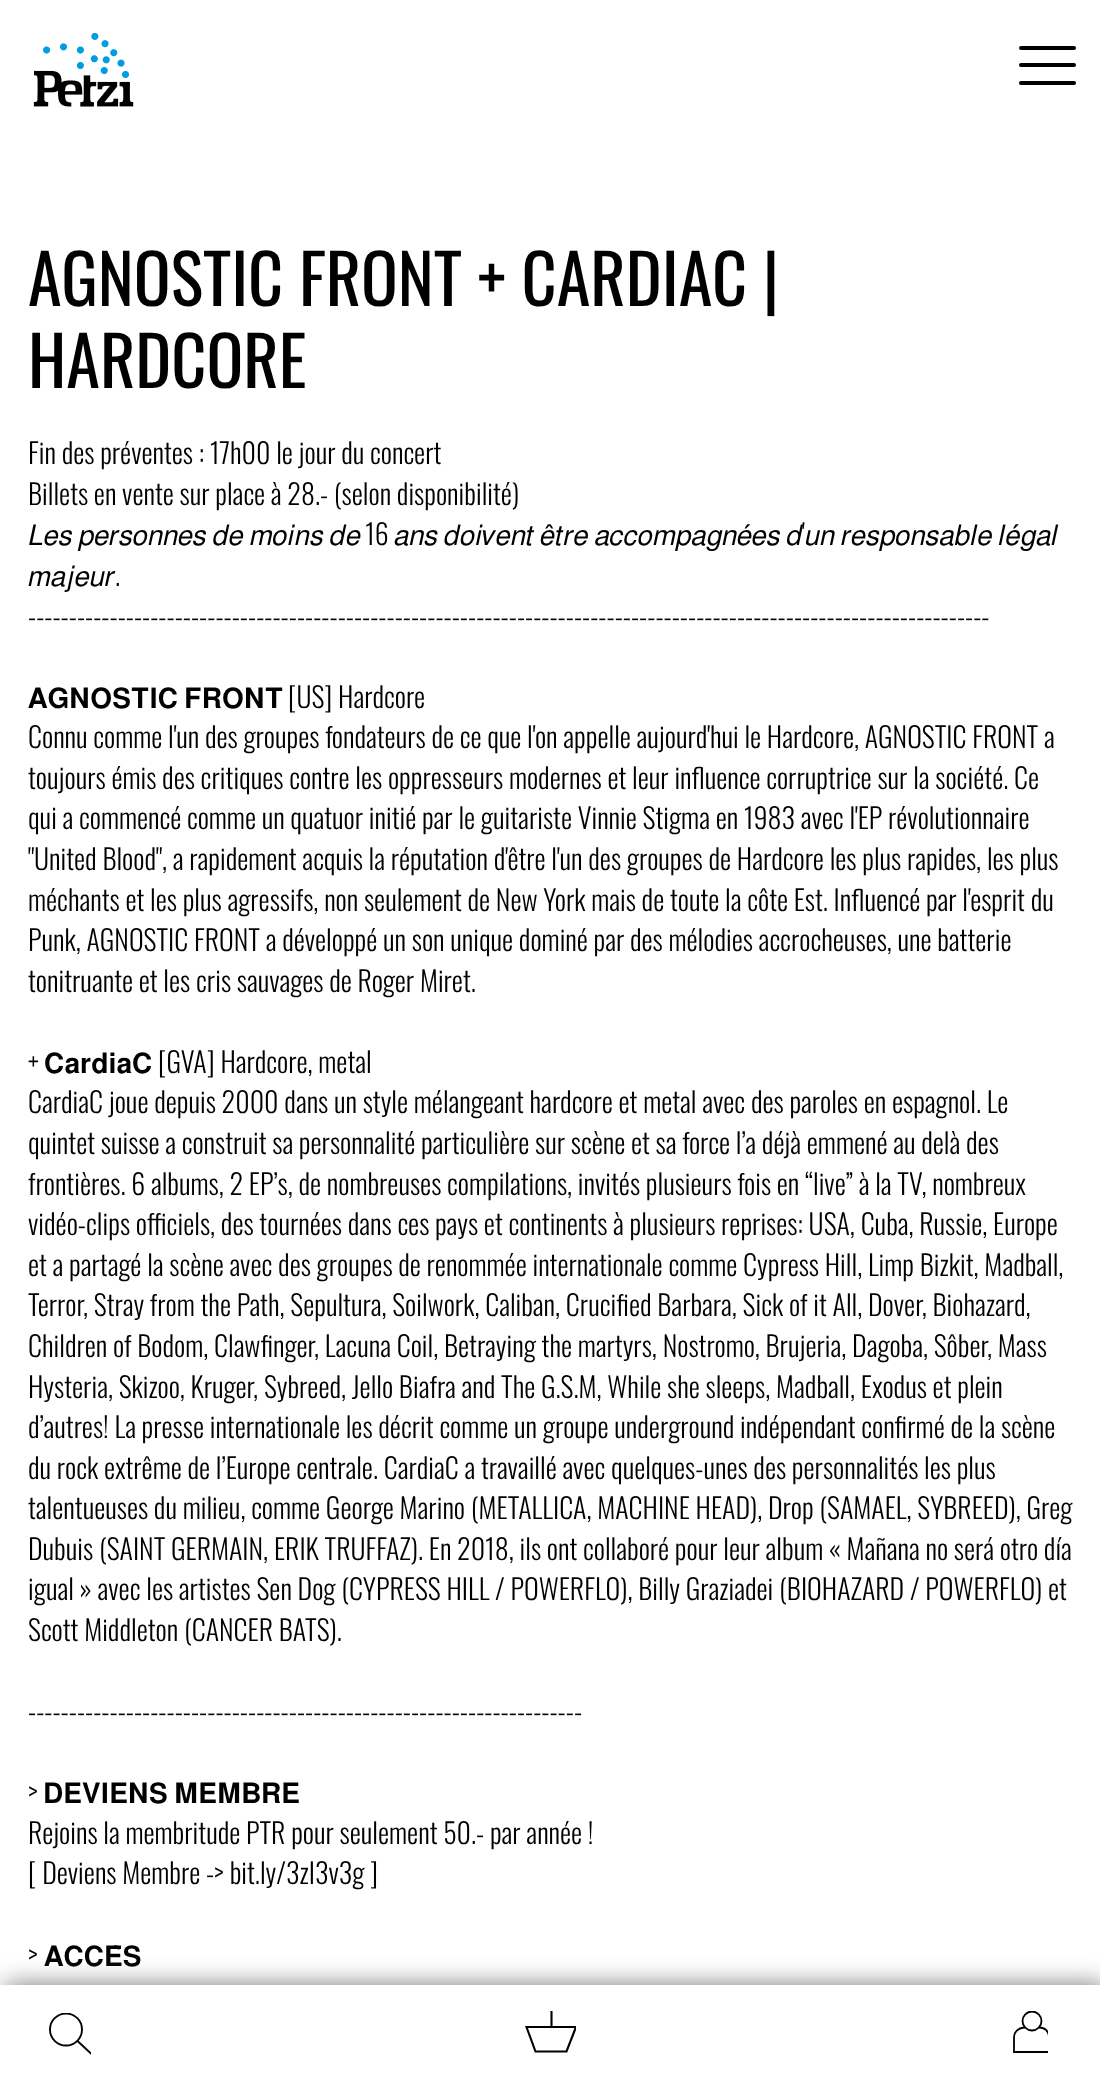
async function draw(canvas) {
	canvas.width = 1100;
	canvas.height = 2089;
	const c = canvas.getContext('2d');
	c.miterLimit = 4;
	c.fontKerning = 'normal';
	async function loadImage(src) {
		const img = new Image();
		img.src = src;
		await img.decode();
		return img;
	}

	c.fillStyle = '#fff';
	c.fillRect(0, 0, 1100, 2089);
	c.drawImage(await loadImage('img1.png'), 33, 32, 101, 75);
	c.fillStyle = '#000';
	c.beginPath();
	c.roundRect(1019, 63, 57, 4, 2);
	c.fill();
	c.beginPath();
	c.roundRect(1019, 46, 57, 4, 2);
	c.fill();
	c.beginPath();
	c.roundRect(1019, 81, 57, 4, 2);
	c.fill();
	c.font = '68.3px Oswald';
	c.fillText('AGNOSTIC FRONT + CARDIAC |', 28, 306);
	c.fillText('HARDCORE', 28, 388);
	c.font = '300 28px Oswald';
	c.fillText('Fin des préventes : 17h00 le jour du concert', 28, 464);
	c.fillText('Billets en vente sur place à 28.- (selon disponibilité)', 28, 505);
	c.wordSpacing = '-1px';
	c.font = '28px FreeSans';
	c.fillText('𝐿𝑒𝑠 𝑝𝑒𝑟𝑠𝑜𝑛𝑛𝑒𝑠 𝑑𝑒 𝑚𝑜𝑖𝑛𝑠 𝑑𝑒', 28, 545);
	c.wordSpacing = '0px';
	c.font = '300 28px Oswald';
	c.fillText('16', 365, 545);
	c.wordSpacing = '-1px';
	c.font = '28px FreeSans';
	c.fillText('𝑎𝑛𝑠 𝑑𝑜𝑖𝑣𝑒𝑛𝑡 𝑒̂𝑡𝑟𝑒 𝑎𝑐𝑐𝑜𝑚𝑝𝑎𝑔𝑛𝑒́𝑒𝑠 𝑑', 394, 545);
	c.wordSpacing = '0px';
	c.font = '300 28px Oswald';
	c.fillText('\'', 802, 545);
	c.wordSpacing = '-1px';
	c.font = '28px FreeSans';
	c.fillText('𝑢𝑛 𝑟𝑒𝑠𝑝𝑜𝑛𝑠𝑎𝑏𝑙𝑒 𝑙𝑒́𝑔𝑎𝑙', 805, 545);
	c.wordSpacing = '0px';
	c.fillText('𝑚𝑎𝑗𝑒𝑢𝑟', 28, 586);
	c.font = '300 28px Oswald';
	c.fillText('.', 115, 586);
	c.fillText('----------------------------------------------------------------------------------------------------------------------', 28, 627);
	c.font = '28px FreeSans';
	c.fillText('𝐀𝐆𝐍𝐎𝐒𝐓𝐈𝐂', 28, 708);
	c.fillText('𝐅𝐑𝐎𝐍𝐓', 184, 708);
	c.font = '300 28px Oswald';
	for (const [text, x, y] of [
		['[US] Hardcore', 288, 708],
		['Connu comme l\'un des groupes fondateurs de ce que l\'on appelle aujourd\'hui le Hardcore, AGNOSTIC FRONT a', 28, 748],
		['toujours émis des critiques contre les oppresseurs modernes et leur influence corruptrice sur la société. Ce', 28, 789],
		['qui a commencé comme un quatuor initié par le guitariste Vinnie Stigma en 1983 avec l\'EP révolutionnaire', 28, 829],
		['"United Blood", a rapidement acquis la réputation d\'être l\'un des groupes de Hardcore les plus rapides, les plus', 28, 870],
		['méchants et les plus agressifs, non seulement de New York mais de toute la côte Est. Influencé par l\'esprit du', 28, 911],
		['Punk, AGNOSTIC FRONT a développé un son unique dominé par des mélodies accrocheuses, une batterie', 28, 951],
		['tonitruante et les cris sauvages de Roger Miret.', 28, 992],
		['+', 28, 1073],
	]) {
		c.fillText(text, x, y);
	}
	c.font = '28px FreeSans';
	c.fillText('𝐂𝐚𝐫𝐝𝐢𝐚𝐂', 44, 1073);
	c.font = '300 28px Oswald';
	for (const [text, x, y] of [
		['[GVA] Hardcore, metal', 158, 1073],
		['CardiaC joue depuis 2000 dans un style mélangeant hardcore et metal avec des paroles en espagnol. Le', 28, 1113],
		['quintet suisse a construit sa personnalité particulière sur scène et sa force l’a déjà emmené au delà des', 28, 1154],
		['frontières. 6 albums, 2 EP’s, de nombreuses compilations, invités plusieurs fois en “live” à la TV, nombreux', 28, 1195],
		['vidéo-clips officiels, des tournées dans ces pays et continents à plusieurs reprises: USA, Cuba, Russie, Europe', 28, 1235],
		['et a partagé la scène avec des groupes de renommée internationale comme Cypress Hill, Limp Bizkit, Madball,', 28, 1276],
		['Terror, Stray from the Path, Sepultura, Soilwork, Caliban, Crucified Barbara, Sick of it All, Dover, Biohazard,', 28, 1316],
		['Children of Bodom, Clawfinger, Lacuna Coil, Betraying the martyrs, Nostromo, Brujeria, Dagoba, Sôber, Mass', 28, 1357],
		['Hysteria, Skizoo, Kruger, Sybreed, Jello Biafra and The G.S.M, While she sleeps, Madball, Exodus et plein', 28, 1398],
		['d’autres! La presse internationale les décrit comme un groupe underground indépendant confirmé de la scène', 28, 1438],
		['du rock extrême de l’Europe centrale. CardiaC a travaillé avec quelques-unes des personnalités les plus', 28, 1479],
		['talentueuses du milieu, comme George Marino (METALLICA, MACHINE HEAD), Drop (SAMAEL, SYBREED), Greg', 28, 1519],
		['Dubuis (SAINT GERMAIN, ERIK TRUFFAZ). En 2018, ils ont collaboré pour leur album « Mañana no será otro día', 28, 1560],
		['igual » avec les artistes Sen Dog (CYPRESS HILL / POWERFLO), Billy Graziadei (BIOHAZARD / POWERFLO) et', 28, 1600],
		['Scott Middleton (CANCER BATS).', 28, 1641],
		['--------------------------------------------------------------------', 28, 1722],
		['>', 28, 1803],
	]) {
		c.fillText(text, x, y);
	}
	c.wordSpacing = '-1px';
	c.font = '28px FreeSans';
	c.fillText('𝐃𝐄𝐕𝐈𝐄𝐍𝐒 𝐌𝐄𝐌𝐁𝐑𝐄', 43, 1803);
	c.wordSpacing = '0px';
	c.font = '300 28px Oswald';
	for (const [text, x, y] of [
		['Rejoins la membritude PTR pour seulement 50.- par année !', 28, 1844],
		['[ Deviens Membre -> bit.ly/3zI3v3g ]', 28, 1884],
		['>', 28, 1966],
	]) {
		c.fillText(text, x, y);
	}
	c.font = '28px FreeSans';
	c.fillText('𝐀𝐂𝐂𝐄̀𝐒', 44, 1966);
	c.fillStyle = '#777';
	c.filter = 'blur(13px)';
	c.beginPath();
	c.rect(5, 1985, 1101, 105);
	c.fill();
	c.filter = 'none';
	c.fillStyle = '#fff';
	c.fillRect(0, 1985, 1100, 104);
	c.save();
	c.beginPath();
	c.rect(49, 2013, 42, 42);
	c.clip();
	c.beginPath();
	c.arc(66, 2029.5, 16, 0, 2 * Math.PI);
	c.strokeStyle = '#000';
	c.lineWidth = 1.9;
	c.stroke();
	c.beginPath();
	c.moveTo(77.5, 2041);
	c.lineTo(91.5, 2054);
	c.stroke();
	c.restore();
	c.save();
	c.beginPath();
	c.rect(525, 2011, 51, 42);
	c.clip();
	c.beginPath();
	c.moveTo(526.5, 2027);
	c.lineTo(576, 2027);
	c.lineTo(566.5, 2051.5);
	c.lineTo(535.5, 2051.5);
	c.closePath();
	c.strokeStyle = '#000';
	c.lineWidth = 2.1;
	c.stroke();
	c.restore();
	c.beginPath();
	c.moveTo(551.5, 2011);
	c.lineTo(551.5, 2027);
	c.strokeStyle = '#000';
	c.lineWidth = 2.1;
	c.stroke();
	c.save();
	c.beginPath();
	c.rect(1013, 2011, 35, 42);
	c.clip();
	c.beginPath();
	c.moveTo(1014, 2052);
	c.lineTo(1049, 2052);
	c.lineTo(1049, 2036.5);
	c.bezierCurveTo(1048.5, 2031.5, 1045, 2028, 1040, 2027.5);
	c.lineTo(1024, 2027.5);
	c.bezierCurveTo(1018, 2028, 1014, 2032, 1014, 2037);
	c.closePath();
	c.lineWidth = 1.8;
	c.stroke();
	c.restore();
	c.beginPath();
	c.arc(1032, 2021, 9.5, 0, 2 * Math.PI);
	c.fill();
	c.save();
	c.beginPath();
	c.rect(1013, 2011, 35, 42);
	c.clip();
	c.beginPath();
	c.arc(1032, 2021, 9.5, 0, 2 * Math.PI);
	c.lineWidth = 1.8;
	c.stroke();
	c.restore();
}

draw(document.querySelector('canvas'));
